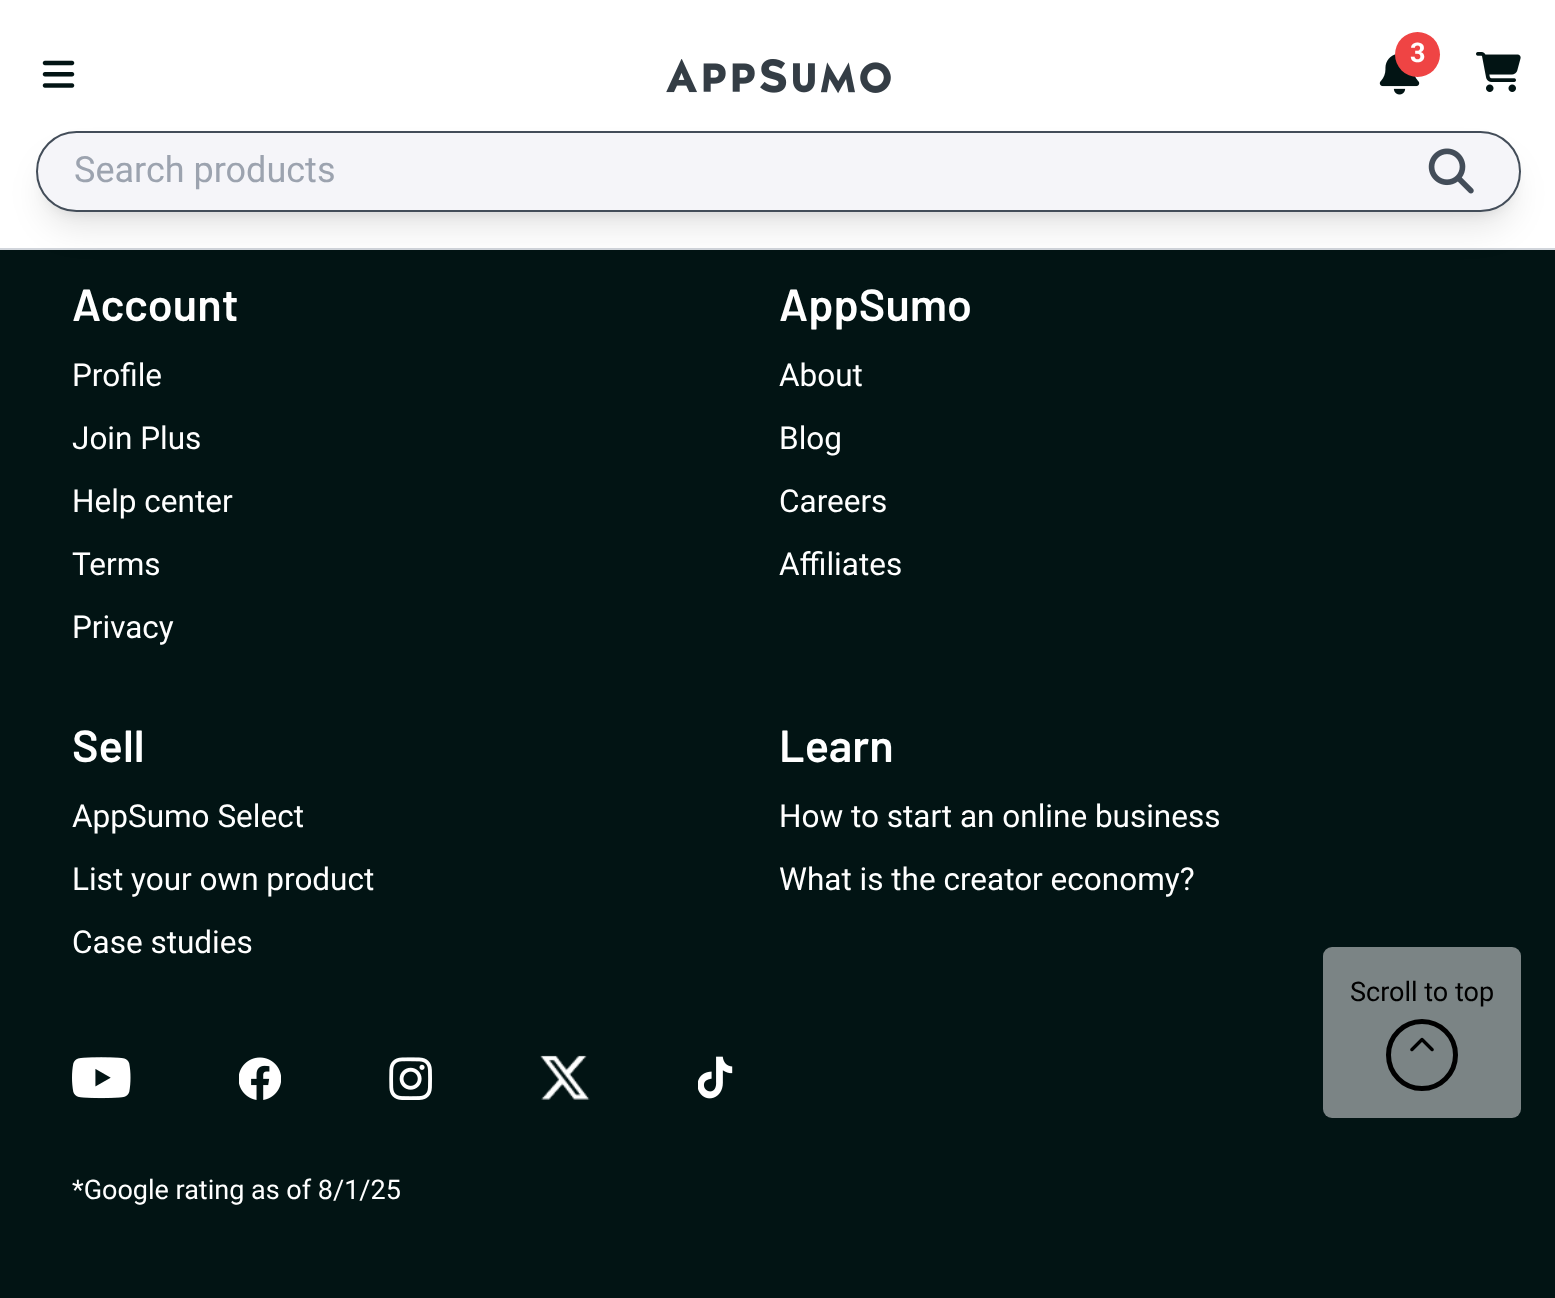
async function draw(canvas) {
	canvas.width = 1555;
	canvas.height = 1298;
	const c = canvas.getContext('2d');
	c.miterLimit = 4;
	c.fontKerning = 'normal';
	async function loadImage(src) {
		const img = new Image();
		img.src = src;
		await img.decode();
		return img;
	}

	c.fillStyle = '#021414';
	c.fillRect(0, 0, 1555, 1298);
	c.fillStyle = '#fff';
	c.fillRect(0, 0, 1555, 248);
	c.fillStyle = '#d1d5db';
	c.fillRect(0, 248, 1555, 2);
	c.drawImage(await loadImage('img1.png'), 1379, 54, 41, 41);
	c.fillStyle = '#ef4444';
	c.beginPath();
	c.arc(1417.5, 54.5, 22.5, 0, 2 * Math.PI);
	c.fill();
	c.font = 'bold 27px Roboto';
	c.fillStyle = '#fff';
	c.fillText('3', 1410, 62);
	c.drawImage(await loadImage('img2.png'), 1476, 52, 45, 40);
	c.drawImage(await loadImage('img3.png'), 42, 60, 33, 28);
	c.drawImage(await loadImage('img4.png'), 666, 59, 225, 35);
	c.fillStyle = '#0000001a';
	c.filter = 'blur(7px)';
	c.beginPath();
	c.roundRect(45, 149, 1467, 63, 31.5);
	c.fill();
	c.filter = 'none';
	c.filter = 'blur(17px)';
	c.beginPath();
	c.roundRect(43, 160, 1471, 67, 33.5);
	c.fill();
	c.filter = 'none';
	c.fillStyle = '#f5f5f9';
	c.beginPath();
	c.roundRect(37, 132, 1483, 79, 39.5);
	c.fill();
	c.strokeStyle = '#434d59';
	c.lineWidth = 2;
	c.stroke();
	c.font = '36px Roboto';
	c.fillStyle = '#9ca3af';
	c.fillText('Search products', 74, 182);
	c.drawImage(await loadImage('img5.png'), 1428, 148, 46, 46);
	c.font = '600 45px Barlow';
	c.fillStyle = '#fff';
	c.fillText('Account', 72, 321);
	c.font = '31.5px Roboto';
	for (const [text, x, y] of [
		['Profile', 72, 386],
		['Join Plus', 72, 449],
		['Help center', 72, 512],
		['Terms', 72, 575],
		['Privacy', 72, 638],
	]) {
		c.fillText(text, x, y);
	}
	c.font = '600 45px Barlow';
	c.fillText('AppSumo', 779, 321);
	c.font = '31.5px Roboto';
	for (const [text, x, y] of [
		['About', 779, 386],
		['Blog', 779, 449],
		['Careers', 779, 512],
		['Affiliates', 779, 575],
	]) {
		c.fillText(text, x, y);
	}
	c.font = '600 45px Barlow';
	c.fillText('Sell', 72, 762);
	c.font = '31.5px Roboto';
	for (const [text, x, y] of [
		['AppSumo Select', 72, 827],
		['List your own product', 72, 890],
		['Case studies', 72, 953],
	]) {
		c.fillText(text, x, y);
	}
	c.font = '600 45px Barlow';
	c.fillText('Learn', 779, 762);
	c.font = '31.5px Roboto';
	c.fillText('How to start an online business', 779, 827);
	c.fillText('What is the creator economy?', 779, 890);
	c.drawImage(await loadImage('img6.png'), 72, 1057, 59, 42);
	c.drawImage(await loadImage('img7.png'), 239, 1057, 42, 43);
	c.drawImage(await loadImage('img8.png'), 389, 1057, 43, 43);
	c.drawImage(await loadImage('img9.png'), 540, 1055, 50, 45);
	c.drawImage(await loadImage('img10.png'), 698, 1056, 35, 43);
	c.font = '27px Roboto';
	c.fillText('*Google rating as of 8/1/25', 72, 1199);
	c.fillStyle = '#7b8485';
	c.beginPath();
	c.roundRect(1323, 947, 198, 171, 9);
	c.fill();
	c.fillStyle = '#000';
	c.fillText('Scroll to top', 1350, 1001);
	c.beginPath();
	c.arc(1422, 1055, 33.5, 0, 2 * Math.PI);
	c.strokeStyle = '#000';
	c.lineWidth = 5;
	c.stroke();
	c.drawImage(await loadImage('img11.png'), 1410, 1037, 24, 15);
}

draw(document.querySelector('canvas'));
